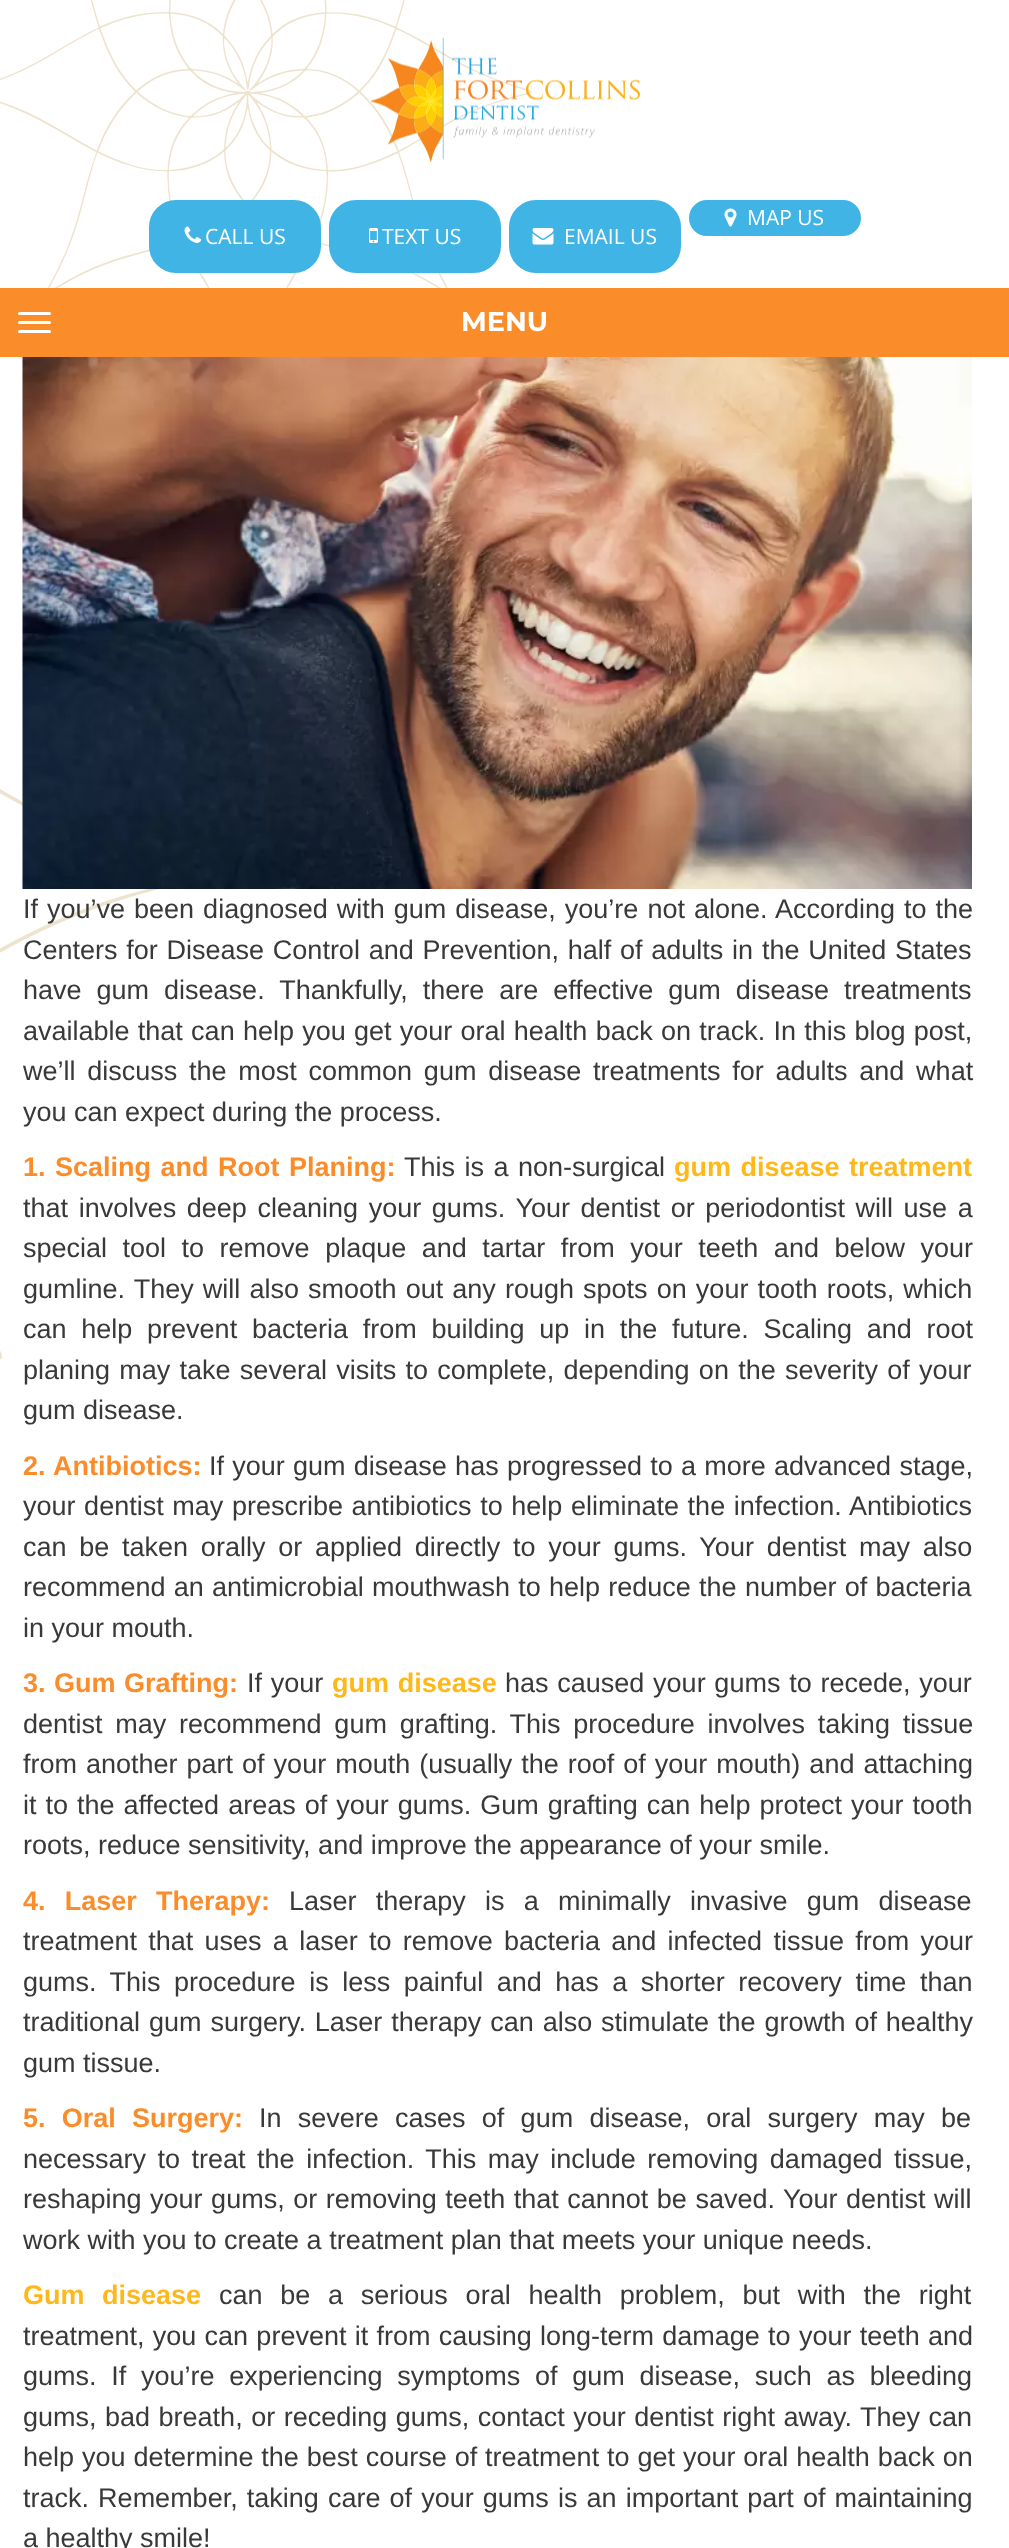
async function draw(canvas) {
	canvas.width = 1009;
	canvas.height = 2548;
	const c = canvas.getContext('2d');
	c.miterLimit = 4;
	c.fontKerning = 'normal';
	async function loadImage(src) {
		const img = new Image();
		img.src = src;
		await img.decode();
		return img;
	}

	c.fillStyle = '#fff';
	c.fillRect(0, 0, 1009, 2548);
	c.drawImage(await loadImage('img1.png'), 0, 0, 532, 288);
	c.drawImage(await loadImage('img2.png'), 371, 37, 269, 126);
	c.fillStyle = '#40b4e5';
	c.beginPath();
	c.roundRect(690, 201, 170, 34, 17);
	c.fill();
	c.strokeStyle = '#40b4e5';
	c.lineWidth = 2;
	c.stroke();
	c.drawImage(await loadImage('img3.png'), 724, 208, 13, 19);
	c.font = '21px Open Sans';
	c.fillStyle = '#fff';
	c.fillText('MAP US', 747, 225);
	c.fillStyle = '#40b4e5';
	c.beginPath();
	c.roundRect(150, 201, 170, 71, 26);
	c.fill();
	c.stroke();
	c.drawImage(await loadImage('img4.png'), 184, 226, 17, 17);
	c.fillStyle = '#fff';
	c.fillText('CALL US', 205, 244);
	c.fillStyle = '#40b4e5';
	c.beginPath();
	c.roundRect(330, 201, 170, 71, 26);
	c.fill();
	c.stroke();
	c.drawImage(await loadImage('img5.png'), 369, 228, 9, 15);
	c.fillStyle = '#fff';
	c.fillText('TEXT US', 382, 244);
	c.fillStyle = '#40b4e5';
	c.beginPath();
	c.roundRect(510, 201, 170, 71, 26);
	c.fill();
	c.stroke();
	c.drawImage(await loadImage('img6.png'), 532, 228, 22, 17);
	c.fillStyle = '#fff';
	c.fillText('EMAIL US', 564, 244);
	c.fillStyle = '#fa8d29';
	c.fillRect(0, 288, 1009, 69);
	c.fillStyle = '#fff';
	c.beginPath();
	c.roundRect(18, 312, 33, 3, 1.5);
	c.fill();
	c.beginPath();
	c.roundRect(18, 321, 33, 3, 1.5);
	c.fill();
	c.beginPath();
	c.roundRect(18, 330, 33, 3, 1.5);
	c.fill();
	c.font = 'bold 27px Montserrat';
	c.fillText('MENU', 461, 331);
	c.drawImage(await loadImage('img7.png'), 0, 789, 159, 571);
	c.drawImage(await loadImage('img8.png'), 22, 357, 950, 532);
	c.wordSpacing = '1.5px';
	c.font = '27px Liberation Sans';
	c.fillStyle = '#393939';
	c.fillText('If you’ve been diagnosed with gum disease, you’re not alone. According to the', 23, 918);
	c.wordSpacing = '1.25px';
	c.fillText('Centers for Disease Control and Prevention, half of adults in the United States', 23, 959);
	c.wordSpacing = '7.5px';
	c.fillText('have gum disease. Thankfully, there are effective gum disease treatments', 23, 999);
	c.wordSpacing = '0.75px';
	c.fillText('available that can help you get your oral health back on track. In this blog post,', 23, 1040);
	c.wordSpacing = '4.25px';
	c.fillText('we’ll discuss the most common gum disease treatments for adults and what', 23, 1080);
	c.wordSpacing = '0px';
	c.fillText('you can expect during the process.', 23, 1121);
	c.wordSpacing = '2px';
	c.font = 'bold 27px Liberation Sans';
	c.fillStyle = '#fa8d29';
	c.fillText('1. Scaling and Root Planing:', 23, 1176);
	c.font = '27px Liberation Sans';
	c.fillStyle = '#393939';
	c.fillText('This is a non-surgical', 404, 1176);
	c.font = 'bold 27px Liberation Sans';
	c.fillStyle = '#ffb819';
	c.fillText('gum disease treatment', 674, 1176);
	c.wordSpacing = '3.1px';
	c.font = '27px Liberation Sans';
	c.fillStyle = '#393939';
	c.fillText('that involves deep cleaning your gums. Your dentist or periodontist will use a', 23, 1217);
	c.wordSpacing = '8px';
	c.fillText('special tool to remove plaque and tartar from your teeth and below your', 23, 1257);
	c.wordSpacing = '1.6px';
	c.fillText('gumline. They will also smooth out any rough spots on your tooth roots, which', 23, 1298);
	c.wordSpacing = '7.25px';
	c.fillText('can help prevent bacteria from building up in the future. Scaling and root', 23, 1338);
	c.wordSpacing = '1.75px';
	c.fillText('planing may take several visits to complete, depending on the severity of your', 23, 1379);
	c.wordSpacing = '0px';
	c.fillText('gum disease.', 23, 1419);
	c.wordSpacing = '1px';
	c.font = 'bold 27px Liberation Sans';
	c.fillStyle = '#fa8d29';
	c.fillText('2. Antibiotics:', 23, 1475);
	c.wordSpacing = '0.75px';
	c.font = '27px Liberation Sans';
	c.fillStyle = '#393939';
	c.fillText('If your gum disease has progressed to a more advanced stage,', 209, 1475);
	c.wordSpacing = '1.1px';
	c.fillText('your dentist may prescribe antibiotics to help eliminate the infection. Antibiotics', 23, 1515);
	c.wordSpacing = '5.25px';
	c.fillText('can be taken orally or applied directly to your gums. Your dentist may also', 23, 1556);
	c.wordSpacing = '0.75px';
	c.fillText('recommend an antimicrobial mouthwash to help reduce the number of bacteria', 23, 1596);
	c.wordSpacing = '0px';
	c.fillText('in your mouth.', 23, 1637);
	c.wordSpacing = '1px';
	c.font = 'bold 27px Liberation Sans';
	c.fillStyle = '#fa8d29';
	c.fillText('3. Gum Grafting:', 23, 1692);
	c.wordSpacing = '1.25px';
	c.font = '27px Liberation Sans';
	c.fillStyle = '#393939';
	c.fillText('If your', 247, 1692);
	c.font = 'bold 27px Liberation Sans';
	c.fillStyle = '#ffb819';
	c.fillText('gum disease', 332, 1692);
	c.font = '27px Liberation Sans';
	c.fillStyle = '#393939';
	c.fillText('has caused your gums to recede, your', 505, 1692);
	c.wordSpacing = '5.25px';
	c.fillText('dentist may recommend gum grafting. This procedure involves taking tissue', 23, 1733);
	c.wordSpacing = '1.5px';
	c.fillText('from another part of your mouth (usually the roof of your mouth) and attaching', 23, 1773);
	c.fillText('it to the affected areas of your gums. Gum grafting can help protect your tooth', 23, 1814);
	c.wordSpacing = '0px';
	c.fillText('roots, reduce sensitivity, and improve the appearance of your smile.', 23, 1854);
	c.wordSpacing = '11.75px';
	c.font = 'bold 27px Liberation Sans';
	c.fillStyle = '#fa8d29';
	c.fillText('4. Laser Therapy:', 23, 1910);
	c.font = '27px Liberation Sans';
	c.fillStyle = '#393939';
	c.fillText('Laser therapy is a minimally invasive gum disease', 289, 1910);
	c.wordSpacing = '3.75px';
	c.fillText('treatment that uses a laser to remove bacteria and infected tissue from your', 23, 1950);
	c.wordSpacing = '6px';
	c.fillText('gums. This procedure is less painful and has a shorter recovery time than', 23, 1991);
	c.wordSpacing = '1.4px';
	c.fillText('traditional gum surgery. Laser therapy can also stimulate the growth of healthy', 23, 2031);
	c.wordSpacing = '0px';
	c.fillText('gum tissue.', 23, 2072);
	c.wordSpacing = '8.75px';
	c.font = 'bold 27px Liberation Sans';
	c.fillStyle = '#fa8d29';
	c.fillText('5. Oral Surgery:', 23, 2127);
	c.font = '27px Liberation Sans';
	c.fillStyle = '#393939';
	c.fillText('In severe cases of gum disease, oral surgery may be', 259, 2127);
	c.wordSpacing = '4px';
	c.fillText('necessary to treat the infection. This may include removing damaged tissue,', 23, 2168);
	c.wordSpacing = '1px';
	c.fillText('reshaping your gums, or removing teeth that cannot be saved. Your dentist will', 23, 2208);
	c.wordSpacing = '0px';
	c.fillText('work with you to create a treatment plan that meets your unique needs.', 23, 2249);
	c.wordSpacing = '10px';
	c.font = 'bold 27px Liberation Sans';
	c.fillStyle = '#ffb819';
	c.fillText('Gum disease', 23, 2304);
	c.wordSpacing = '10.25px';
	c.font = '27px Liberation Sans';
	c.fillStyle = '#393939';
	c.fillText('can be a serious oral health problem, but with the right', 219, 2304);
	c.wordSpacing = '0.75px';
	c.fillText('treatment, you can prevent it from causing long-term damage to your teeth and', 23, 2345);
	c.wordSpacing = '7.25px';
	c.fillText('gums. If you’re experiencing symptoms of gum disease, such as bleeding', 23, 2385);
	c.wordSpacing = '1px';
	c.fillText('gums, bad breath, or receding gums, contact your dentist right away. They can', 23, 2426);
	c.wordSpacing = '0.4px';
	c.fillText('help you determine the best course of treatment to get your oral health back on', 23, 2466);
	c.wordSpacing = '1.6px';
	c.fillText('track. Remember, taking care of your gums is an important part of maintaining', 23, 2507);
	c.wordSpacing = '0px';
	c.fillText('a healthy smile!', 23, 2547);
}

draw(document.querySelector('canvas'));
